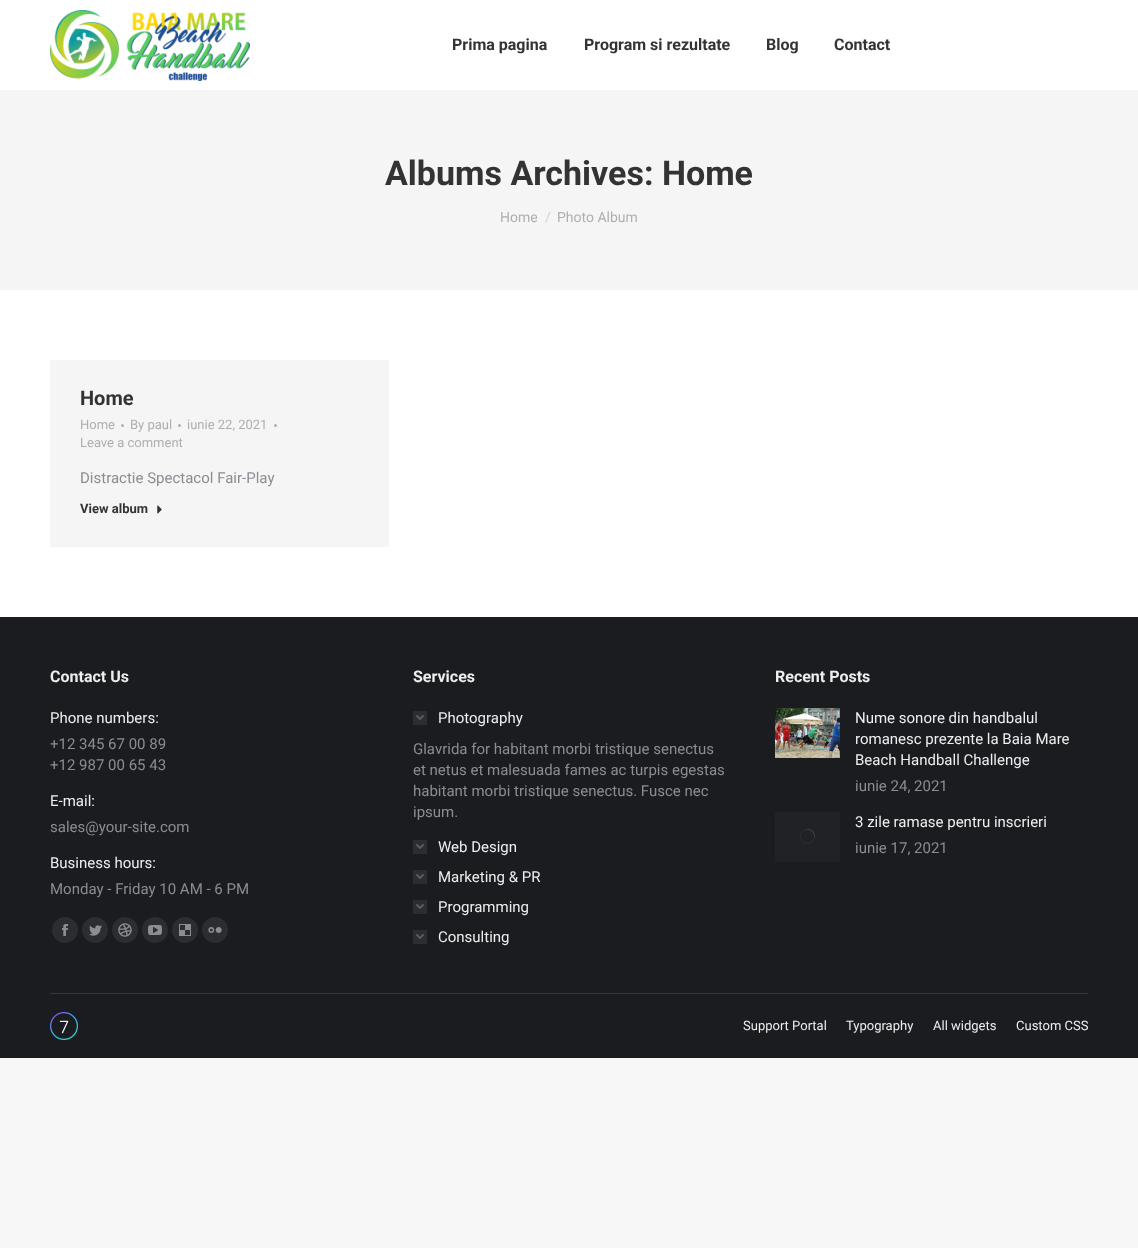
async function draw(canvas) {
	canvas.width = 1138;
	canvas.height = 1248;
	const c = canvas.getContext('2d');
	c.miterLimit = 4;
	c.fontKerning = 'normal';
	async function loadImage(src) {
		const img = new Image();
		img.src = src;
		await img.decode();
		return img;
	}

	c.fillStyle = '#f7f7f7';
	c.fillRect(0, 0, 1138, 1248);
	c.fillStyle = '#fff';
	c.fillRect(0, 0, 1138, 617);
	c.drawImage(await loadImage('img1.png'), 50, 10, 200, 71);
	c.font = 'bold 16px Roboto';
	c.fillStyle = '#333';
	for (const [text, x, y] of [
		['Prima pagina', 452, 50],
		['Program si rezultate', 584, 50],
		['Blog', 766, 50],
		['Contact', 834, 50],
	]) {
		c.fillText(text, x, y);
	}
	c.fillStyle = '#f5f5f5';
	c.fillRect(0, 90, 1138, 200);
	c.font = 'bold 34px Roboto';
	c.fillStyle = '#333';
	c.fillText('Albums Archives: Home', 385, 185);
	c.font = '14px Roboto';
	c.fillStyle = '#adafb3';
	c.fillText('Home', 500, 222);
	c.fillStyle = '#d1d2d4';
	c.fillText('/', 545, 222);
	c.fillStyle = '#adafb3';
	c.fillText('Photo Album', 557, 222);
	c.fillStyle = '#f5f5f5';
	c.fillRect(50, 360, 339, 187);
	c.font = 'bold 20px Roboto';
	c.fillStyle = '#333';
	c.fillText('Home', 80, 405);
	c.font = '13px Roboto';
	c.fillStyle = '#adafb3';
	c.fillText('Home', 80, 429);
	c.beginPath();
	c.arc(122.5, 425.5, 1.5, 0, 2 * Math.PI);
	c.fill();
	c.fillText('By paul', 130, 429);
	c.beginPath();
	c.arc(179.5, 425.5, 1.5, 0, 2 * Math.PI);
	c.fill();
	c.fillText('iunie 22, 2021', 187, 429);
	c.beginPath();
	c.arc(275.5, 425.5, 1.5, 0, 2 * Math.PI);
	c.fill();
	c.fillText('Leave a comment', 80, 447);
	c.font = '15px Roboto';
	c.fillStyle = '#8b8d94';
	c.fillText('Distractie Spectacol Fair-Play', 80, 483);
	c.font = 'bold 13px Roboto';
	c.fillStyle = '#333';
	c.fillText('View album', 80, 513);
	c.drawImage(await loadImage('img2.png'), 157, 505, 5, 9);
	c.fillStyle = '#1a1c20';
	c.fillRect(0, 617, 1138, 441);
	c.font = 'bold 16px Roboto';
	c.fillStyle = '#eee';
	c.fillText('Contact Us', 50, 682);
	c.font = '15px Roboto';
	c.fillText('Phone numbers:', 50, 723);
	c.fillStyle = '#8b8d94';
	c.fillText('+12 345 67 00 89', 50, 749);
	c.fillText('+12 987 00 65 43', 50, 770);
	c.fillStyle = '#eee';
	c.fillText('E-mail:', 50, 806);
	c.fillStyle = '#8b8d94';
	c.fillText('sales@your-site.com', 50, 832);
	c.fillStyle = '#eee';
	c.fillText('Business hours:', 50, 868);
	c.fillStyle = '#8b8d94';
	c.fillText('Monday - Friday 10 AM - 6 PM', 50, 894);
	c.fillStyle = '#2b2d31';
	c.beginPath();
	c.arc(65, 930, 13, 0, 2 * Math.PI);
	c.fill();
	c.drawImage(await loadImage('img3.png'), 62, 924, 6, 12);
	c.beginPath();
	c.arc(95, 930, 13, 0, 2 * Math.PI);
	c.fill();
	c.drawImage(await loadImage('img4.png'), 89, 925, 13, 11);
	c.beginPath();
	c.arc(125, 930, 13, 0, 2 * Math.PI);
	c.fill();
	c.drawImage(await loadImage('img5.png'), 118, 923, 14, 14);
	c.beginPath();
	c.arc(155, 930, 13, 0, 2 * Math.PI);
	c.fill();
	c.drawImage(await loadImage('img6.png'), 148, 925, 14, 10);
	c.beginPath();
	c.arc(185, 930, 13, 0, 2 * Math.PI);
	c.fill();
	c.drawImage(await loadImage('img7.png'), 179, 924, 12, 12);
	c.beginPath();
	c.arc(215, 930, 13, 0, 2 * Math.PI);
	c.fill();
	c.drawImage(await loadImage('img8.png'), 208, 927, 14, 6);
	c.font = 'bold 16px Roboto';
	c.fillStyle = '#eee';
	c.fillText('Services', 413, 682);
	c.fillStyle = '#2b2d31';
	c.fillRect(413, 711, 14, 14);
	c.font = '15px Roboto';
	c.fillStyle = '#eee';
	c.fillText('Photography', 438, 723);
	c.drawImage(await loadImage('img9.png'), 416, 715, 8, 5);
	c.fillStyle = '#8b8d94';
	for (const [text, x, y] of [
		['Glavrida for habitant morbi tristique senectus', 413, 754],
		['et netus et malesuada fames ac turpis egestas', 413, 775],
		['habitant morbi tristique senectus. Fusce nec', 413, 796],
		['ipsum.', 413, 817],
	]) {
		c.fillText(text, x, y);
	}
	c.fillStyle = '#2b2d31';
	c.fillRect(413, 840, 14, 14);
	c.fillStyle = '#eee';
	c.fillText('Web Design', 438, 852);
	c.drawImage(await loadImage('img9.png'), 416, 844, 8, 5);
	c.fillStyle = '#2b2d31';
	c.fillRect(413, 870, 14, 14);
	c.fillStyle = '#eee';
	c.fillText('Marketing & PR', 438, 882);
	c.drawImage(await loadImage('img9.png'), 416, 874, 8, 5);
	c.fillStyle = '#2b2d31';
	c.fillRect(413, 900, 14, 14);
	c.fillStyle = '#eee';
	c.fillText('Programming', 438, 912);
	c.drawImage(await loadImage('img9.png'), 416, 904, 8, 5);
	c.fillStyle = '#2b2d31';
	c.fillRect(413, 930, 14, 14);
	c.fillStyle = '#eee';
	c.fillText('Consulting', 438, 942);
	c.drawImage(await loadImage('img9.png'), 416, 934, 8, 5);
	c.font = 'bold 16px Roboto';
	c.fillText('Recent Posts', 775, 682);
	c.drawImage(await loadImage('img10.png'), 775, 708, 65, 50);
	c.font = '15px Roboto';
	for (const [text, x, y] of [
		['Nume sonore din handbalul', 855, 723],
		['romanesc prezente la Baia Mare', 855, 744],
		['Beach Handball Challenge', 855, 765],
	]) {
		c.fillText(text, x, y);
	}
	c.fillStyle = '#8b8d94';
	c.fillText('iunie 24, 2021', 855, 791);
	c.fillStyle = '#202226';
	c.fillRect(775, 812, 65, 50);
	c.drawImage(await loadImage('img11.png'), 800, 829, 15, 15);
	c.fillStyle = '#eee';
	c.fillText('3 zile ramase pentru inscrieri', 855, 827);
	c.fillStyle = '#8b8d94';
	c.fillText('iunie 17, 2021', 855, 853);
	c.fillStyle = '#35373b';
	c.fillRect(50, 993, 1038, 1);
	c.drawImage(await loadImage('img12.png'), 50, 1012, 28, 28);
	c.font = '13px Roboto';
	c.fillStyle = '#eee';
	for (const [text, x, y] of [
		['Support Portal', 743, 1030],
		['Typography', 846, 1030],
		['All widgets', 933, 1030],
		['Custom CSS', 1016, 1030],
	]) {
		c.fillText(text, x, y);
	}
}

draw(document.querySelector('canvas'));
